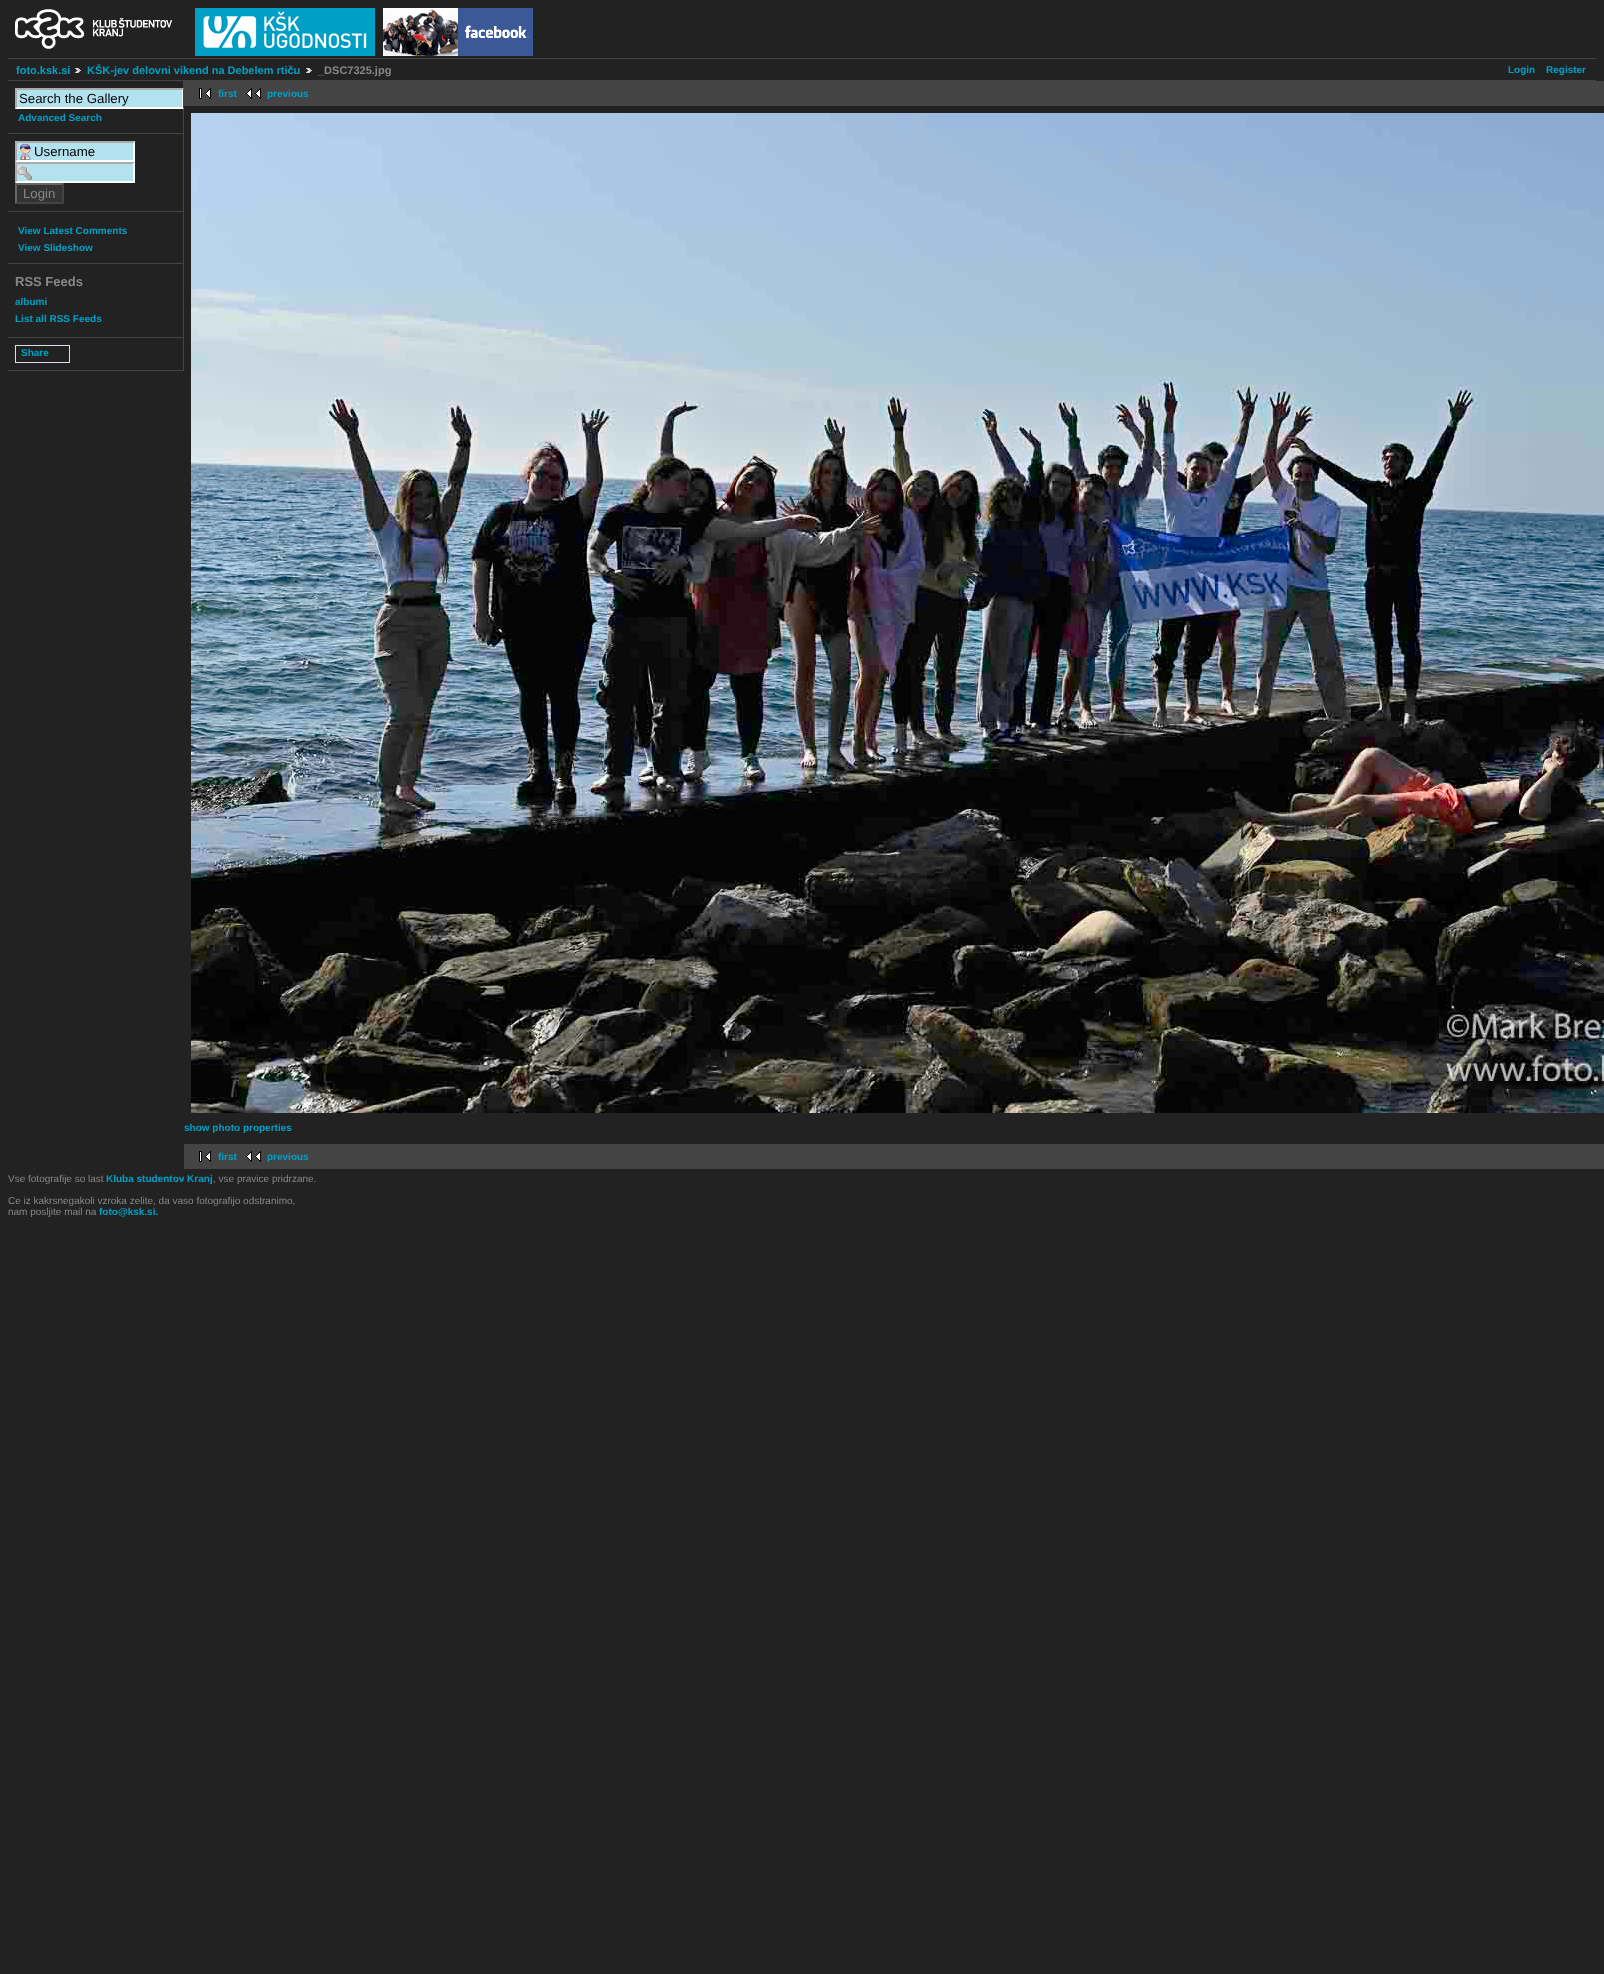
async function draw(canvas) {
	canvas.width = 1604;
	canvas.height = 1974;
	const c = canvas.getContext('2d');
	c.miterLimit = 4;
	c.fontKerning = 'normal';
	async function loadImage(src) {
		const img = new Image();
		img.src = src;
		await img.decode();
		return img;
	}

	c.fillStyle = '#222';
	c.fillRect(0, 0, 1604, 1974);
	c.drawImage(await loadImage('img1.png'), 15, 9, 157, 40);
	c.drawImage(await loadImage('img2.png'), 195, 8, 180, 48);
	c.drawImage(await loadImage('img3.png'), 383, 8, 150, 48);
	c.fillStyle = '#444';
	c.fillRect(8, 58, 1588, 1);
	c.fillRect(8, 80, 1588, 1);
	c.font = 'bold 11px Liberation Sans';
	c.fillStyle = '#00a0c6';
	c.fillText('foto.ksk.si', 16, 74);
	c.drawImage(await loadImage('img4.png'), 75, 68, 6, 5);
	c.fillText('KŠK-jev delovni vikend na Debelem rtiču', 87, 74);
	c.drawImage(await loadImage('img4.png'), 306, 68, 6, 5);
	c.fillStyle = '#888';
	c.fillText('_DSC7325.jpg', 318, 74);
	c.font = 'bold 10px Liberation Sans';
	c.fillStyle = '#00a0c6';
	c.fillText('Login', 1508, 73);
	c.fillText('Register', 1546, 73);
	for (const [x, y, w, h, color] of [
		[183, 81, 1, 290, '#444'],
		[8, 133, 175, 1, '#444'],
		[15, 88, 168, 21, '#b2e2ee'],
	]) {
		c.fillStyle = color;
		c.fillRect(x, y, w, h);
	}
	c.fillStyle = '#aaa';
	c.beginPath();
	c.moveTo(15, 88);
	c.lineTo(184, 88);
	c.lineTo(182, 90);
	c.lineTo(17, 90);
	c.closePath();
	c.fill();
	c.save();
	c.beginPath();
	c.rect(8, 81, 175, 290);
	c.clip();
	c.fillStyle = '#fff';
	c.beginPath();
	c.moveTo(184, 88);
	c.lineTo(184, 109);
	c.lineTo(182, 107);
	c.lineTo(182, 90);
	c.closePath();
	c.fill();
	c.restore();
	c.fillStyle = '#fff';
	c.beginPath();
	c.moveTo(184, 109);
	c.lineTo(15, 109);
	c.lineTo(17, 107);
	c.lineTo(182, 107);
	c.closePath();
	c.fill();
	c.fillStyle = '#aaa';
	c.beginPath();
	c.moveTo(15, 109);
	c.lineTo(15, 88);
	c.lineTo(17, 90);
	c.lineTo(17, 107);
	c.closePath();
	c.fill();
	c.font = '13.25px Liberation Sans';
	c.fillStyle = '#000';
	c.fillText('Search the Gallery', 19, 103);
	c.font = 'bold 10px Liberation Sans';
	c.fillStyle = '#00a0c6';
	c.fillText('Advanced Search', 18, 121);
	c.fillStyle = '#444';
	c.fillRect(8, 211, 175, 1);
	c.fillStyle = '#b2e2ee';
	c.fillRect(15, 141, 120, 42);
	c.drawImage(await loadImage('img5.png'), 20, 144, 11, 16);
	c.fillStyle = '#aaa';
	c.beginPath();
	c.moveTo(15, 141);
	c.lineTo(135, 141);
	c.lineTo(133, 143);
	c.lineTo(17, 143);
	c.closePath();
	c.fill();
	c.fillStyle = '#fff';
	c.beginPath();
	c.moveTo(135, 141);
	c.lineTo(135, 162);
	c.lineTo(133, 160);
	c.lineTo(133, 143);
	c.closePath();
	c.fill();
	c.beginPath();
	c.moveTo(135, 162);
	c.lineTo(15, 162);
	c.lineTo(17, 160);
	c.lineTo(133, 160);
	c.closePath();
	c.fill();
	c.fillStyle = '#aaa';
	c.beginPath();
	c.moveTo(15, 162);
	c.lineTo(15, 141);
	c.lineTo(17, 143);
	c.lineTo(17, 160);
	c.closePath();
	c.fill();
	c.font = '13.25px Liberation Sans';
	c.fillStyle = '#000';
	c.fillText('Username', 34, 156);
	c.drawImage(await loadImage('img6.png'), 17, 166, 15, 14);
	c.fillStyle = '#aaa';
	c.beginPath();
	c.moveTo(15, 162);
	c.lineTo(135, 162);
	c.lineTo(133, 164);
	c.lineTo(17, 164);
	c.closePath();
	c.fill();
	c.fillStyle = '#fff';
	c.beginPath();
	c.moveTo(135, 162);
	c.lineTo(135, 183);
	c.lineTo(133, 181);
	c.lineTo(133, 164);
	c.closePath();
	c.fill();
	c.beginPath();
	c.moveTo(135, 183);
	c.lineTo(15, 183);
	c.lineTo(17, 181);
	c.lineTo(133, 181);
	c.closePath();
	c.fill();
	c.fillStyle = '#aaa';
	c.beginPath();
	c.moveTo(15, 183);
	c.lineTo(15, 162);
	c.lineTo(17, 164);
	c.lineTo(17, 181);
	c.closePath();
	c.fill();
	c.fillStyle = '#333';
	c.fillRect(15, 183, 49, 21);
	c.fillStyle = '#666';
	c.beginPath();
	c.moveTo(15, 183);
	c.lineTo(64, 183);
	c.lineTo(62, 185);
	c.lineTo(17, 185);
	c.closePath();
	c.fill();
	c.fillStyle = '#444';
	c.beginPath();
	c.moveTo(64, 183);
	c.lineTo(64, 204);
	c.lineTo(62, 202);
	c.lineTo(62, 185);
	c.closePath();
	c.fill();
	c.beginPath();
	c.moveTo(64, 204);
	c.lineTo(15, 204);
	c.lineTo(17, 202);
	c.lineTo(62, 202);
	c.closePath();
	c.fill();
	c.fillStyle = '#666';
	c.beginPath();
	c.moveTo(15, 204);
	c.lineTo(15, 183);
	c.lineTo(17, 185);
	c.lineTo(17, 202);
	c.closePath();
	c.fill();
	c.fillStyle = '#888';
	c.fillText('Login', 23, 198);
	c.fillStyle = '#444';
	c.fillRect(8, 263, 175, 1);
	c.font = 'bold 10px Liberation Sans';
	c.fillStyle = '#00a0c6';
	c.fillText('View Latest Comments', 18, 234);
	c.fillText('View Slideshow', 18, 251);
	c.fillStyle = '#444';
	c.fillRect(8, 337, 175, 1);
	c.font = 'bold 13px Liberation Sans';
	c.fillStyle = '#888';
	c.fillText('RSS Feeds', 15, 286);
	c.font = 'bold 10px Liberation Sans';
	c.fillStyle = '#00a0c6';
	c.fillText('albumi', 15, 305);
	c.fillText('List all RSS Feeds', 15, 322);
	c.fillStyle = '#444';
	c.fillRect(8, 370, 175, 1);
	c.strokeStyle = '#d8dfea';
	c.strokeRect(15.5, 345.5, 54, 17);
	c.fillStyle = '#00a0c6';
	c.fillText('Share', 21, 356);
	c.fillStyle = '#444';
	c.fillRect(184, 81, 1420, 25);
	c.drawImage(await loadImage('img7.png'), 199, 88, 12, 11);
	c.fillStyle = '#00a0c6';
	c.fillText('first', 218, 97);
	c.drawImage(await loadImage('img8.png'), 246, 88, 15, 11);
	c.fillText('previous', 267, 97);
	c.drawImage(await loadImage('img9.png'), 191, 113, 1413, 1000);
	c.fillText('show photo properties', 184, 1131);
	c.fillStyle = '#444';
	c.fillRect(184, 1144, 1420, 25);
	c.drawImage(await loadImage('img7.png'), 199, 1151, 12, 11);
	c.fillStyle = '#00a0c6';
	c.fillText('first', 218, 1160);
	c.drawImage(await loadImage('img8.png'), 246, 1151, 15, 11);
	c.fillText('previous', 267, 1160);
	c.font = '10px Liberation Sans';
	c.fillStyle = '#888';
	c.fillText('Vse fotografije so last', 8, 1182);
	c.font = 'bold 10px Liberation Sans';
	c.fillStyle = '#00a0c6';
	c.fillText('Kluba studentov Kranj', 106, 1182);
	c.font = '10px Liberation Sans';
	c.fillStyle = '#888';
	for (const [text, x, y] of [
		[', vse pravice pridrzane.', 213, 1182],
		['Ce iz kakrsnegakoli vzroka zelite, da vaso fotografijo odstranimo,', 8, 1204],
		['nam posljite mail na', 8, 1215],
	]) {
		c.fillText(text, x, y);
	}
	c.font = 'bold 10px Liberation Sans';
	c.fillStyle = '#00a0c6';
	c.fillText('foto@ksk.si.', 99, 1215);
}

draw(document.querySelector('canvas'));
